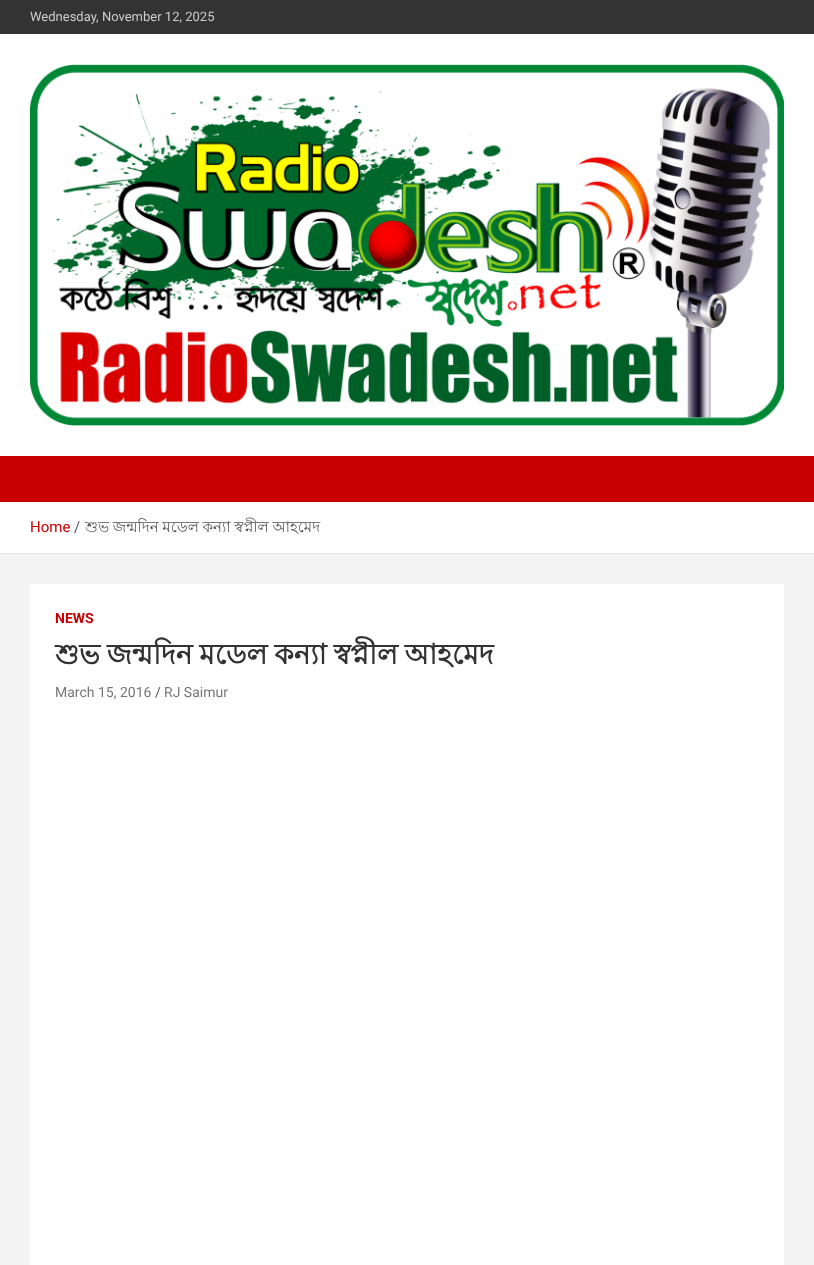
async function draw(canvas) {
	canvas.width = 814;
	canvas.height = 1265;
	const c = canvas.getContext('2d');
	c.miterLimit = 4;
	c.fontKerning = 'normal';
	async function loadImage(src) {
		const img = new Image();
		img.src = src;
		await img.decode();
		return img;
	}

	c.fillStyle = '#f4f4f4';
	c.fillRect(0, 0, 814, 1265);
	c.fillStyle = '#333';
	c.fillRect(0, 0, 814, 34);
	c.font = '13px Roboto';
	c.fillStyle = '#ccc';
	c.fillText('Wednesday, November 12, 2025', 30, 21);
	c.fillStyle = '#fff';
	c.fillRect(0, 34, 814, 422);
	c.drawImage(await loadImage('img1.png'), 30, 64, 754, 362);
	for (const [x, y, w, h, color] of [
		[0, 456, 814, 46, '#c80000'],
		[0, 502, 814, 51, '#fff'],
		[0, 553, 814, 1, '#e6e6e6'],
	]) {
		c.fillStyle = color;
		c.fillRect(x, y, w, h);
	}
	c.font = '15px Roboto';
	c.fillStyle = '#c80000';
	c.fillText('Home', 30, 532);
	c.fillStyle = '#555';
	c.fillText('/', 74, 532);
	c.wordSpacing = '-0.5px';
	c.font = '15px Lohit Bengali';
	c.fillText('শুভ জন্মদিন মডেল কন্যা স্বপ্নীল আহমেদ', 85, 532);
	c.fillStyle = '#fff';
	c.fillRect(30, 584, 754, 681);
	c.wordSpacing = '0px';
	c.font = 'bold 14px Roboto';
	c.fillStyle = '#c80000';
	c.fillText('NEWS', 55, 623);
	c.wordSpacing = '-1px';
	c.font = 'bold 28px Lohit Bengali';
	c.fillStyle = '#333';
	c.fillText('শুভ জন্মদিন মডেল কন্যা স্বপ্নীল আহমেদ', 55, 664);
	c.wordSpacing = '0px';
	c.font = '14px Roboto';
	c.fillStyle = '#777';
	c.fillText('March 15, 2016', 55, 697);
	c.fillStyle = '#555';
	c.fillText('/', 155, 697);
	c.fillStyle = '#777';
	c.fillText('RJ Saimur', 164, 697);
}

draw(document.querySelector('canvas'));
